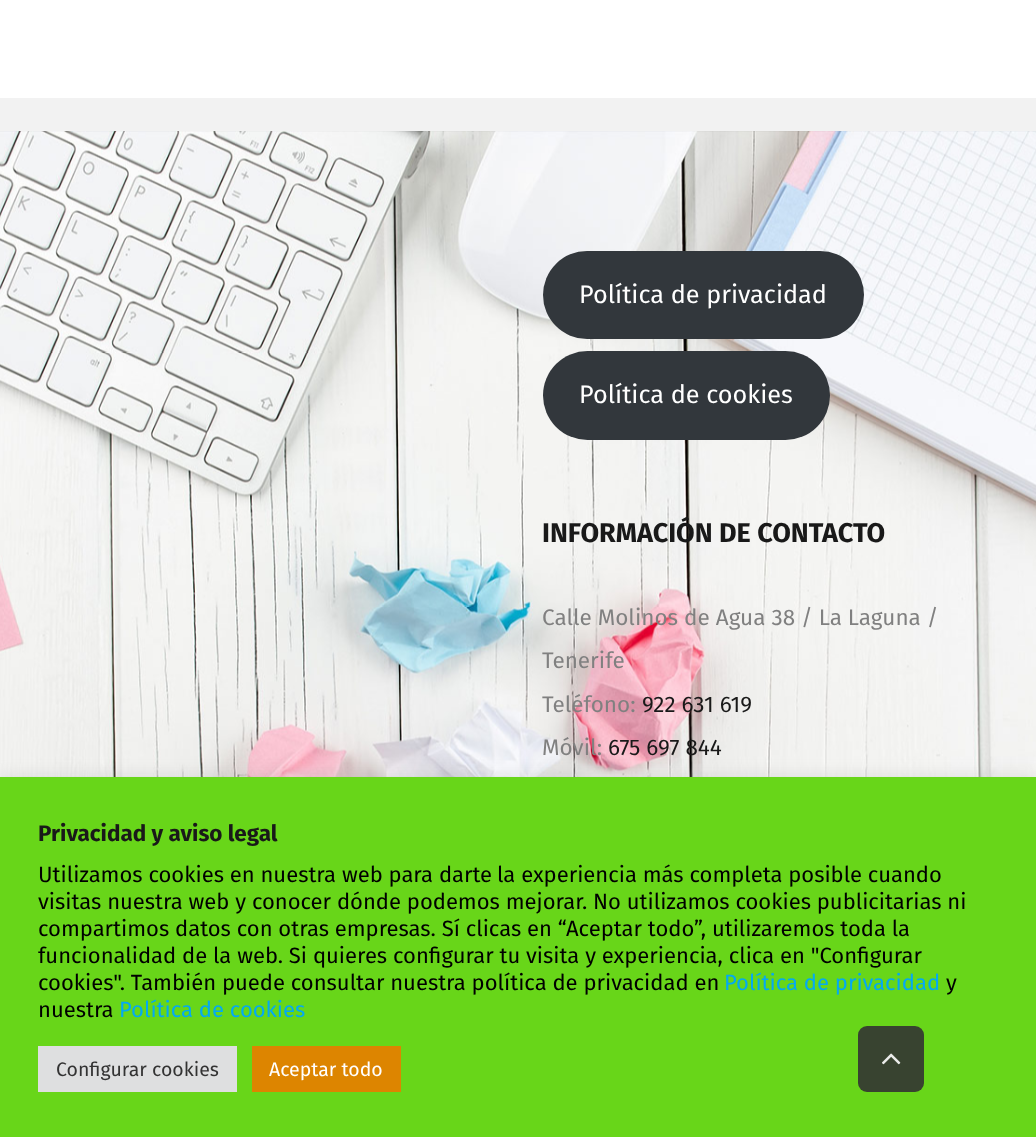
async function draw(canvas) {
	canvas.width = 1036;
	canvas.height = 1137;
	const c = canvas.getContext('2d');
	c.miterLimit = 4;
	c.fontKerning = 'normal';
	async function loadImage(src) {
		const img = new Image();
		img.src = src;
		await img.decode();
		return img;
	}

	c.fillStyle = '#fff';
	c.fillRect(0, 0, 1036, 1137);
	c.drawImage(await loadImage('img1.png'), 0, 131, 1036, 646);
	c.fillStyle = '#f2f2f2';
	c.fillRect(0, 98, 1036, 33);
	c.fillStyle = '#32373c';
	c.beginPath();
	c.roundRect(543, 251, 321, 88, 44);
	c.fill();
	c.font = '25.25px Fira Sans';
	c.fillStyle = '#fff';
	c.fillText('Política de privacidad', 579, 303);
	c.fillStyle = '#32373c';
	c.beginPath();
	c.roundRect(543, 351, 287, 89, 44.5);
	c.fill();
	c.fillStyle = '#fff';
	c.fillText('Política de cookies', 579, 403);
	c.font = 'bold 27px Fira Sans';
	c.fillStyle = '#191919';
	c.fillText('INFORMACIÓN DE CONTACTO', 542, 542);
	c.font = '22.5px Fira Sans';
	c.fillStyle = '#808080';
	for (const [text, x, y] of [
		['Calle Molinos de Agua 38 / La Laguna /', 542, 625],
		['Tenerife', 542, 668],
		['Teléfono:', 542, 712],
	]) {
		c.fillText(text, x, y);
	}
	c.fillStyle = '#191919';
	c.fillText('922 631 619', 642, 712);
	c.fillStyle = '#808080';
	c.fillText('Móvil:', 542, 755);
	c.fillStyle = '#191919';
	c.fillText('675 697 844', 608, 755);
	c.fillStyle = '#acabab4d';
	c.filter = 'blur(7.5px)';
	c.beginPath();
	c.rect(0, 776, 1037, 360);
	c.fill();
	c.filter = 'none';
	c.fillStyle = '#68d619';
	c.fillRect(0, 777, 1036, 360);
	c.font = 'bold 22.5px Fira Sans';
	c.fillStyle = '#191919';
	c.fillText('Privacidad y aviso legal', 38, 841);
	c.font = '22px Fira Sans';
	c.fillStyle = '#000';
	for (const [text, x, y] of [
		['Utilizamos cookies en nuestra web para darte', 38, 882],
		['la experiencia más completa posible cuando', 497, 882],
		['visitas nuestra web y conocer dónde podemos mejorar. No utilizamos cookies publicitarias ni', 38, 909],
		['compartimos datos con otras empresas. Sí clicas en “Aceptar todo”, utilizaremos toda la', 38, 936],
		['funcionalidad de la web. Si quieres configurar tu visita y experiencia, clica en "Configurar', 38, 963],
		['cookies". También puede consultar nuestra política de privacidad en', 38, 990],
	]) {
		c.fillText(text, x, y);
	}
	c.fillStyle = '#03a9f4';
	c.fillText('Política de privacidad', 724, 990);
	c.fillStyle = '#000';
	c.fillText('y', 946, 990);
	c.fillText('nuestra', 38, 1017);
	c.fillStyle = '#03a9f4';
	c.fillText('Política de cookies', 119, 1017);
	c.fillStyle = '#dedfe0';
	c.fillRect(38, 1046, 199, 46);
	c.font = '19.5px Fira Sans';
	c.fillStyle = '#333';
	c.fillText('Configurar cookies', 56, 1076);
	c.fillStyle = '#dd8500';
	c.fillRect(252, 1046, 149, 46);
	c.fillStyle = '#fff';
	c.fillText('Aceptar todo', 269, 1076);
	c.fillStyle = '#384330';
	c.beginPath();
	c.roundRect(858, 1026, 66, 66, 9);
	c.fill();
	c.drawImage(await loadImage('img2.png'), 882, 1053, 19, 12);
}

draw(document.querySelector('canvas'));
